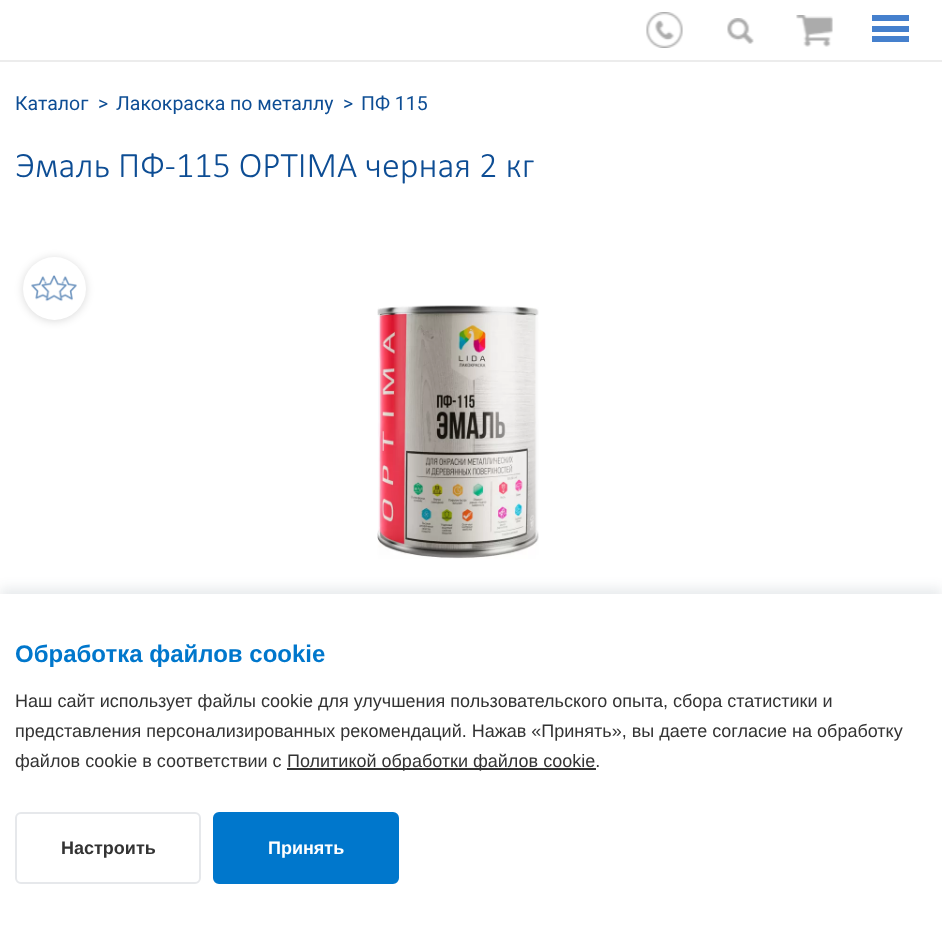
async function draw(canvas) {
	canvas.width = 942;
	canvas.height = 943;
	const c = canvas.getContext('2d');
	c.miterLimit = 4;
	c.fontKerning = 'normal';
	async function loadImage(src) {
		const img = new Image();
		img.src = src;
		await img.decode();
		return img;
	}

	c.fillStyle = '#fff';
	c.fillRect(0, 0, 942, 943);
	c.fillStyle = '#ececec';
	c.fillRect(0, 60, 942, 2);
	c.drawImage(await loadImage('img1.png'), 646, 12, 37, 36);
	c.drawImage(await loadImage('img2.png'), 727, 18, 27, 26);
	c.drawImage(await loadImage('img3.png'), 796, 15, 37, 32);
	for (const [x, y, w, h, color] of [
		[872, 26, 37, 6, '#4580cd'],
		[872, 15, 37, 6, '#4580cd'],
		[872, 36, 37, 6, '#4580cd'],
	]) {
		c.fillStyle = color;
		c.fillRect(x, y, w, h);
	}
	c.font = '19.5px Roboto';
	c.fillStyle = '#0d4d94';
	for (const [text, x, y] of [
		['Каталог', 15, 110],
		['>', 98, 110],
		['Лакокраска по металлу', 116, 110],
		['>', 343, 110],
		['ПФ 115', 361, 110],
	]) {
		c.fillText(text, x, y);
	}
	c.font = '300 36px Calibri';
	c.fillText('Эмаль ПФ-115 OPTIMA черная 2 кг', 15, 177);
	c.fillStyle = '#00000026';
	c.filter = 'blur(4.5px)';
	c.beginPath();
	c.roundRect(23, 258, 63, 63, 31.5);
	c.fill();
	c.filter = 'none';
	c.fillStyle = '#fff';
	c.beginPath();
	c.arc(54.5, 288.5, 31.5, 0, 2 * Math.PI);
	c.fill();
	c.drawImage(await loadImage('img4.png'), 31, 275, 46, 27);
	c.drawImage(await loadImage('img5.png'), 377, 305, 162, 254);
	c.fillStyle = '#223c501a';
	c.filter = 'blur(6px)';
	c.beginPath();
	c.rect(0, 588, 942, 350);
	c.fill();
	c.filter = 'none';
	c.fillStyle = '#fff';
	c.fillRect(0, 594, 942, 349);
	c.font = 'bold 24px Liberation Sans';
	c.fillStyle = '#07c';
	c.fillText('Обработка файлов cookie', 15, 662);
	c.font = '18px Liberation Sans';
	c.fillStyle = '#333';
	for (const [text, x, y] of [
		['Наш сайт использует файлы cookie для улучшения пользовательского опыта, сбора статистики и', 15, 707],
		['представления персонализированных рекомендаций. Нажав «Принять», вы даете согласие на обработку', 15, 737],
		['файлов cookie в соответствии с', 15, 767],
	]) {
		c.fillText(text, x, y);
	}
	c.fillRect(287, 768, 309, 2);
	c.fillText('Политикой обработки файлов cookie.', 287, 767);
	c.beginPath();
	c.roundRect(16, 813, 184, 70, 5);
	c.strokeStyle = '#e6e8eb';
	c.lineWidth = 2;
	c.stroke();
	c.font = 'bold 18px Liberation Sans';
	c.fillText('Настроить', 61, 854);
	c.fillStyle = '#07c';
	c.beginPath();
	c.roundRect(214, 813, 184, 70, 5);
	c.fill();
	c.strokeStyle = '#07c';
	c.stroke();
	c.fillStyle = '#fff';
	c.fillText('Принять', 268, 854);
}

draw(document.querySelector('canvas'));
